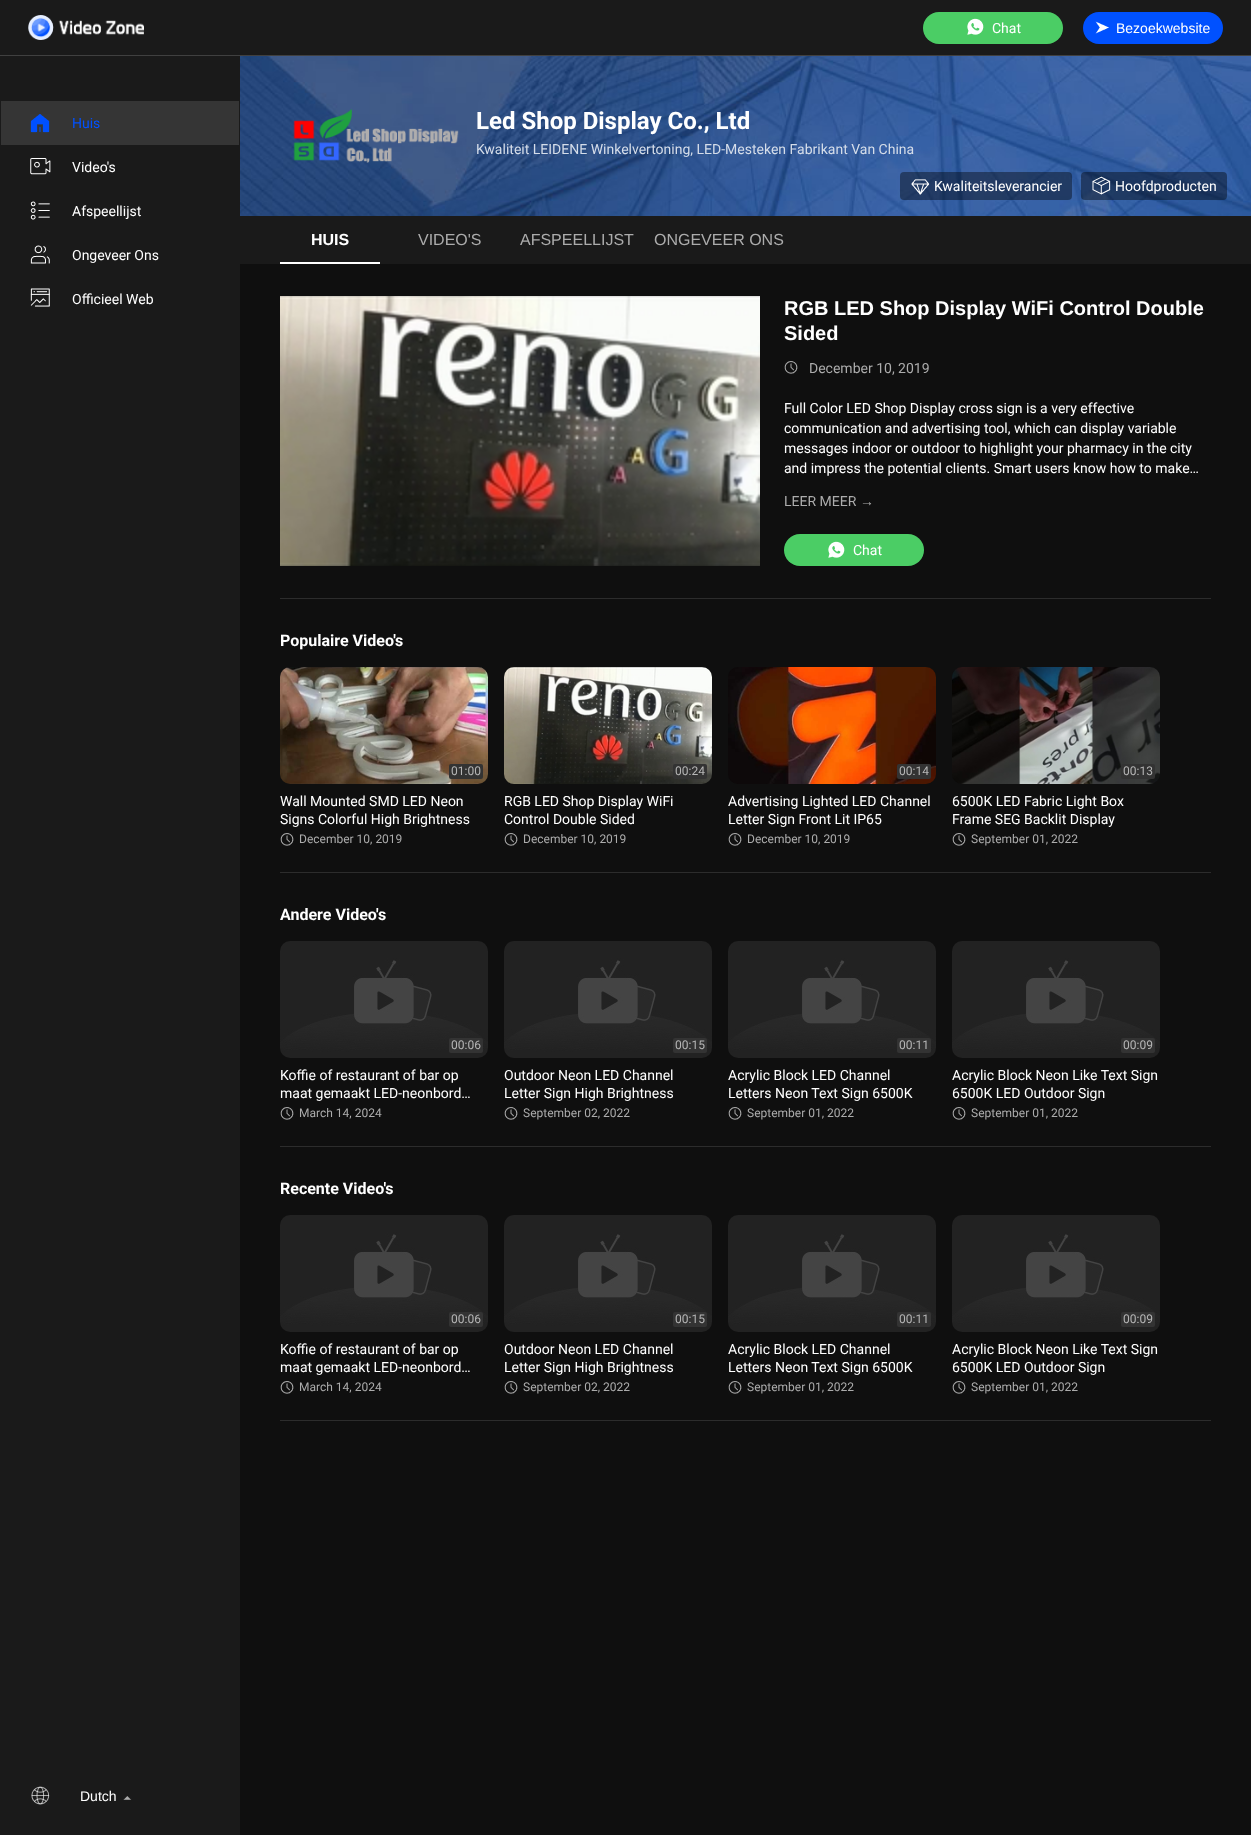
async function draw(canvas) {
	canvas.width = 1251;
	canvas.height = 1835;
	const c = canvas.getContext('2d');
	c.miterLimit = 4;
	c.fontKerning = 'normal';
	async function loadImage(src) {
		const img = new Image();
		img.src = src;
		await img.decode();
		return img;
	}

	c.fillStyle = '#1a1a1a';
	c.fillRect(0, 0, 1251, 1835);
	c.fillStyle = '#404040';
	c.fillRect(0, 55, 1251, 1);
	c.drawImage(await loadImage('img1.png'), 28, 15, 116, 25);
	c.fillStyle = '#4bcd65';
	c.beginPath();
	c.roundRect(923, 12, 140, 32, 16);
	c.fill();
	c.drawImage(await loadImage('img2.png'), 967, 18, 17, 17);
	c.font = '14px Roboto';
	c.fillStyle = '#fff';
	c.fillText('Chat', 992, 33);
	c.fillStyle = '#0051ff';
	c.beginPath();
	c.roundRect(1083, 12, 140, 32, 16);
	c.fill();
	c.drawImage(await loadImage('img3.png'), 1095, 21, 14, 13);
	c.font = '14px Liberation Sans';
	c.fillStyle = '#fff';
	c.fillText('Bezoekwebsite', 1116, 33);
	c.fillStyle = '#353535';
	c.fillRect(1, 101, 238, 44);
	c.drawImage(await loadImage('img4.png'), 30, 114, 20, 19);
	c.font = '14px Roboto';
	c.fillStyle = '#0051ff';
	c.fillText('Huis', 72, 128);
	c.drawImage(await loadImage('img5.png'), 30, 158, 21, 17);
	c.fillStyle = '#fff';
	c.fillText('Video\'s', 72, 172);
	c.drawImage(await loadImage('img6.png'), 30, 201, 20, 19);
	c.fillText('Afspeellijst', 72, 216);
	c.drawImage(await loadImage('img7.png'), 30, 245, 20, 19);
	c.fillText('Ongeveer Ons', 72, 260);
	c.drawImage(await loadImage('img8.png'), 30, 288, 20, 19);
	c.fillText('Officieel Web', 72, 304);
	c.drawImage(await loadImage('img9.png'), 31, 1786, 19, 19);
	c.font = '14px Liberation Sans';
	c.fillText('Dutch', 80, 1801);
	c.drawImage(await loadImage('img10.png'), 123, 1796, 9, 4);
	c.fillStyle = '#0f0f0f';
	c.fillRect(240, 264, 1011, 1571);
	c.drawImage(await loadImage('img11.png'), 240, 56, 1011, 160);
	c.drawImage(await loadImage('img12.png'), 293, 109, 166, 54);
	c.font = 'bold 24px Roboto';
	c.fillStyle = '#fff';
	c.fillText('Led Shop Display Co., Ltd', 476, 129);
	c.font = '14px Roboto';
	c.fillStyle = '#d5dde9';
	c.fillText('Kwaliteit LEIDENE Winkelvertoning, LED-Mesteken Fabrikant Van China', 476, 154);
	c.fillStyle = '#00000066';
	c.beginPath();
	c.roundRect(900, 172, 172, 28, 4);
	c.fill();
	c.drawImage(await loadImage('img13.png'), 911, 179, 19, 16);
	c.fillStyle = '#fff';
	c.fillText('Kwaliteitsleverancier', 934, 191);
	c.fillStyle = '#00000066';
	c.beginPath();
	c.roundRect(1081, 172, 146, 28, 4);
	c.fill();
	c.drawImage(await loadImage('img14.png'), 1092, 176, 19, 19);
	c.fillStyle = '#fff';
	c.fillText('Hoofdproducten', 1115, 191);
	c.font = 'bold 16px Liberation Sans';
	c.fillText('HUIS', 311, 245);
	c.fillRect(280, 262, 100, 2);
	c.font = '16px Liberation Sans';
	c.fillStyle = '#acacac';
	for (const [text, x, y] of [
		['VIDEO\'S', 418, 245],
		['AFSPEELLIJST', 520, 245],
		['ONGEVEER ONS', 654, 245],
	]) {
		c.fillText(text, x, y);
	}
	c.fillStyle = '#2c2c2c';
	c.fillRect(280, 598, 931, 1);
	c.drawImage(await loadImage('img15.png'), 280, 296, 480, 270);
	c.font = 'bold 20px Liberation Sans';
	c.fillStyle = '#fff';
	c.fillText('RGB LED Shop Display WiFi Control Double', 784, 315);
	c.fillText('Sided', 784, 340);
	c.drawImage(await loadImage('img16.png'), 784, 361, 14, 13);
	c.font = '14px Roboto';
	c.fillStyle = '#acacac';
	c.fillText('December 10, 2019', 809, 373);
	c.fillStyle = '#fff';
	for (const [text, x, y] of [
		['Full Color LED Shop Display cross sign is a very effective', 784, 413],
		['communication and advertising tool, which can display variable', 784, 433],
		['messages indoor or outdoor to highlight your pharmacy in the city', 784, 453],
		['and impress the potential clients. Smart users know how to make…', 784, 473],
	]) {
		c.fillText(text, x, y);
	}
	c.fillStyle = '#acacac';
	c.fillText('LEER MEER', 784, 506);
	c.font = '14px Liberation Sans';
	c.fillText('→', 860, 506);
	c.fillStyle = '#4bcd65';
	c.beginPath();
	c.roundRect(784, 534, 140, 32, 16);
	c.fill();
	c.drawImage(await loadImage('img2.png'), 828, 541, 17, 17);
	c.font = '14px Roboto';
	c.fillStyle = '#fff';
	c.fillText('Chat', 853, 555);
	c.fillStyle = '#2c2c2c';
	c.fillRect(280, 872, 931, 1);
	c.font = 'bold 16px Roboto';
	c.fillStyle = '#fff';
	c.fillText('Populaire Video\'s', 280, 646);
	c.drawImage(await loadImage('img17.png'), 280, 667, 208, 117);
	c.fillStyle = '#333';
	c.beginPath();
	c.roundRect(449, 764, 34, 15, 2);
	c.fill();
	c.font = '12px Roboto';
	c.fillStyle = '#b6b6b6';
	c.fillText('01:00', 451, 775);
	c.font = '14px Roboto';
	c.fillStyle = '#fff';
	c.fillText('Wall Mounted SMD LED Neon', 280, 806);
	c.fillText('Signs Colorful High Brightness', 280, 824);
	c.drawImage(await loadImage('img16.png'), 280, 833, 14, 13);
	c.font = '12px Roboto';
	c.fillStyle = '#acacac';
	c.fillText('December 10, 2019', 299, 843);
	c.drawImage(await loadImage('img18.png'), 504, 667, 208, 117);
	c.fillStyle = '#333';
	c.beginPath();
	c.roundRect(673, 764, 34, 15, 2);
	c.fill();
	c.fillStyle = '#b6b6b6';
	c.fillText('00:24', 675, 775);
	c.font = '14px Roboto';
	c.fillStyle = '#fff';
	c.fillText('RGB LED Shop Display WiFi', 504, 806);
	c.fillText('Control Double Sided', 504, 824);
	c.drawImage(await loadImage('img16.png'), 504, 833, 14, 13);
	c.font = '12px Roboto';
	c.fillStyle = '#acacac';
	c.fillText('December 10, 2019', 523, 843);
	c.drawImage(await loadImage('img19.png'), 728, 667, 208, 117);
	c.fillStyle = '#333';
	c.beginPath();
	c.roundRect(897, 764, 34, 15, 2);
	c.fill();
	c.fillStyle = '#b6b6b6';
	c.fillText('00:14', 899, 775);
	c.font = '14px Roboto';
	c.fillStyle = '#fff';
	c.fillText('Advertising Lighted LED Channel', 728, 806);
	c.fillText('Letter Sign Front Lit IP65', 728, 824);
	c.drawImage(await loadImage('img16.png'), 728, 833, 14, 13);
	c.font = '12px Roboto';
	c.fillStyle = '#acacac';
	c.fillText('December 10, 2019', 747, 843);
	c.drawImage(await loadImage('img20.png'), 952, 667, 208, 117);
	c.fillStyle = '#333';
	c.beginPath();
	c.roundRect(1121, 764, 34, 15, 2);
	c.fill();
	c.fillStyle = '#b6b6b6';
	c.fillText('00:13', 1123, 775);
	c.font = '14px Roboto';
	c.fillStyle = '#fff';
	c.fillText('6500K LED Fabric Light Box', 952, 806);
	c.fillText('Frame SEG Backlit Display', 952, 824);
	c.drawImage(await loadImage('img16.png'), 952, 833, 14, 13);
	c.font = '12px Roboto';
	c.fillStyle = '#acacac';
	c.fillText('September 01, 2022', 971, 843);
	c.fillStyle = '#2c2c2c';
	c.fillRect(280, 1146, 931, 1);
	c.font = 'bold 16px Roboto';
	c.fillStyle = '#fff';
	c.fillText('Andere Video\'s', 280, 920);
	c.drawImage(await loadImage('img21.png'), 280, 941, 208, 117);
	c.fillStyle = '#333';
	c.beginPath();
	c.roundRect(449, 1038, 34, 15, 2);
	c.fill();
	c.font = '12px Roboto';
	c.fillStyle = '#b6b6b6';
	c.fillText('00:06', 451, 1049);
	c.font = '14px Roboto';
	c.fillStyle = '#fff';
	c.fillText('Koffie of restaurant of bar op', 280, 1080);
	c.fillText('maat gemaakt LED-neonbord…', 280, 1098);
	c.drawImage(await loadImage('img16.png'), 280, 1107, 14, 13);
	c.font = '12px Roboto';
	c.fillStyle = '#acacac';
	c.fillText('March 14, 2024', 299, 1117);
	c.drawImage(await loadImage('img22.png'), 504, 941, 208, 117);
	c.fillStyle = '#333';
	c.beginPath();
	c.roundRect(673, 1038, 34, 15, 2);
	c.fill();
	c.fillStyle = '#b6b6b6';
	c.fillText('00:15', 675, 1049);
	c.font = '14px Roboto';
	c.fillStyle = '#fff';
	c.fillText('Outdoor Neon LED Channel', 504, 1080);
	c.fillText('Letter Sign High Brightness', 504, 1098);
	c.drawImage(await loadImage('img16.png'), 504, 1107, 14, 13);
	c.font = '12px Roboto';
	c.fillStyle = '#acacac';
	c.fillText('September 02, 2022', 523, 1117);
	c.drawImage(await loadImage('img23.png'), 728, 941, 208, 117);
	c.fillStyle = '#333';
	c.beginPath();
	c.roundRect(897, 1038, 34, 15, 2);
	c.fill();
	c.fillStyle = '#b6b6b6';
	c.fillText('00:11', 899, 1049);
	c.font = '14px Roboto';
	c.fillStyle = '#fff';
	c.fillText('Acrylic Block LED Channel', 728, 1080);
	c.fillText('Letters Neon Text Sign 6500K', 728, 1098);
	c.drawImage(await loadImage('img16.png'), 728, 1107, 14, 13);
	c.font = '12px Roboto';
	c.fillStyle = '#acacac';
	c.fillText('September 01, 2022', 747, 1117);
	c.drawImage(await loadImage('img23.png'), 952, 941, 208, 117);
	c.fillStyle = '#333';
	c.beginPath();
	c.roundRect(1121, 1038, 34, 15, 2);
	c.fill();
	c.fillStyle = '#b6b6b6';
	c.fillText('00:09', 1123, 1049);
	c.font = '14px Roboto';
	c.fillStyle = '#fff';
	c.fillText('Acrylic Block Neon Like Text Sign', 952, 1080);
	c.fillText('6500K LED Outdoor Sign', 952, 1098);
	c.drawImage(await loadImage('img16.png'), 952, 1107, 14, 13);
	c.font = '12px Roboto';
	c.fillStyle = '#acacac';
	c.fillText('September 01, 2022', 971, 1117);
	c.fillStyle = '#2c2c2c';
	c.fillRect(280, 1420, 931, 1);
	c.font = 'bold 16px Roboto';
	c.fillStyle = '#fff';
	c.fillText('Recente Video\'s', 280, 1194);
	c.drawImage(await loadImage('img21.png'), 280, 1215, 208, 117);
	c.fillStyle = '#333';
	c.beginPath();
	c.roundRect(449, 1312, 34, 15, 2);
	c.fill();
	c.font = '12px Roboto';
	c.fillStyle = '#b6b6b6';
	c.fillText('00:06', 451, 1323);
	c.font = '14px Roboto';
	c.fillStyle = '#fff';
	c.fillText('Koffie of restaurant of bar op', 280, 1354);
	c.fillText('maat gemaakt LED-neonbord…', 280, 1372);
	c.drawImage(await loadImage('img16.png'), 280, 1381, 14, 13);
	c.font = '12px Roboto';
	c.fillStyle = '#acacac';
	c.fillText('March 14, 2024', 299, 1391);
	c.drawImage(await loadImage('img22.png'), 504, 1215, 208, 117);
	c.fillStyle = '#333';
	c.beginPath();
	c.roundRect(673, 1312, 34, 15, 2);
	c.fill();
	c.fillStyle = '#b6b6b6';
	c.fillText('00:15', 675, 1323);
	c.font = '14px Roboto';
	c.fillStyle = '#fff';
	c.fillText('Outdoor Neon LED Channel', 504, 1354);
	c.fillText('Letter Sign High Brightness', 504, 1372);
	c.drawImage(await loadImage('img16.png'), 504, 1381, 14, 13);
	c.font = '12px Roboto';
	c.fillStyle = '#acacac';
	c.fillText('September 02, 2022', 523, 1391);
	c.drawImage(await loadImage('img23.png'), 728, 1215, 208, 117);
	c.fillStyle = '#333';
	c.beginPath();
	c.roundRect(897, 1312, 34, 15, 2);
	c.fill();
	c.fillStyle = '#b6b6b6';
	c.fillText('00:11', 899, 1323);
	c.font = '14px Roboto';
	c.fillStyle = '#fff';
	c.fillText('Acrylic Block LED Channel', 728, 1354);
	c.fillText('Letters Neon Text Sign 6500K', 728, 1372);
	c.drawImage(await loadImage('img16.png'), 728, 1381, 14, 13);
	c.font = '12px Roboto';
	c.fillStyle = '#acacac';
	c.fillText('September 01, 2022', 747, 1391);
	c.drawImage(await loadImage('img23.png'), 952, 1215, 208, 117);
	c.fillStyle = '#333';
	c.beginPath();
	c.roundRect(1121, 1312, 34, 15, 2);
	c.fill();
	c.fillStyle = '#b6b6b6';
	c.fillText('00:09', 1123, 1323);
	c.font = '14px Roboto';
	c.fillStyle = '#fff';
	c.fillText('Acrylic Block Neon Like Text Sign', 952, 1354);
	c.fillText('6500K LED Outdoor Sign', 952, 1372);
	c.drawImage(await loadImage('img16.png'), 952, 1381, 14, 13);
	c.font = '12px Roboto';
	c.fillStyle = '#acacac';
	c.fillText('September 01, 2022', 971, 1391);
}

draw(document.querySelector('canvas'));
